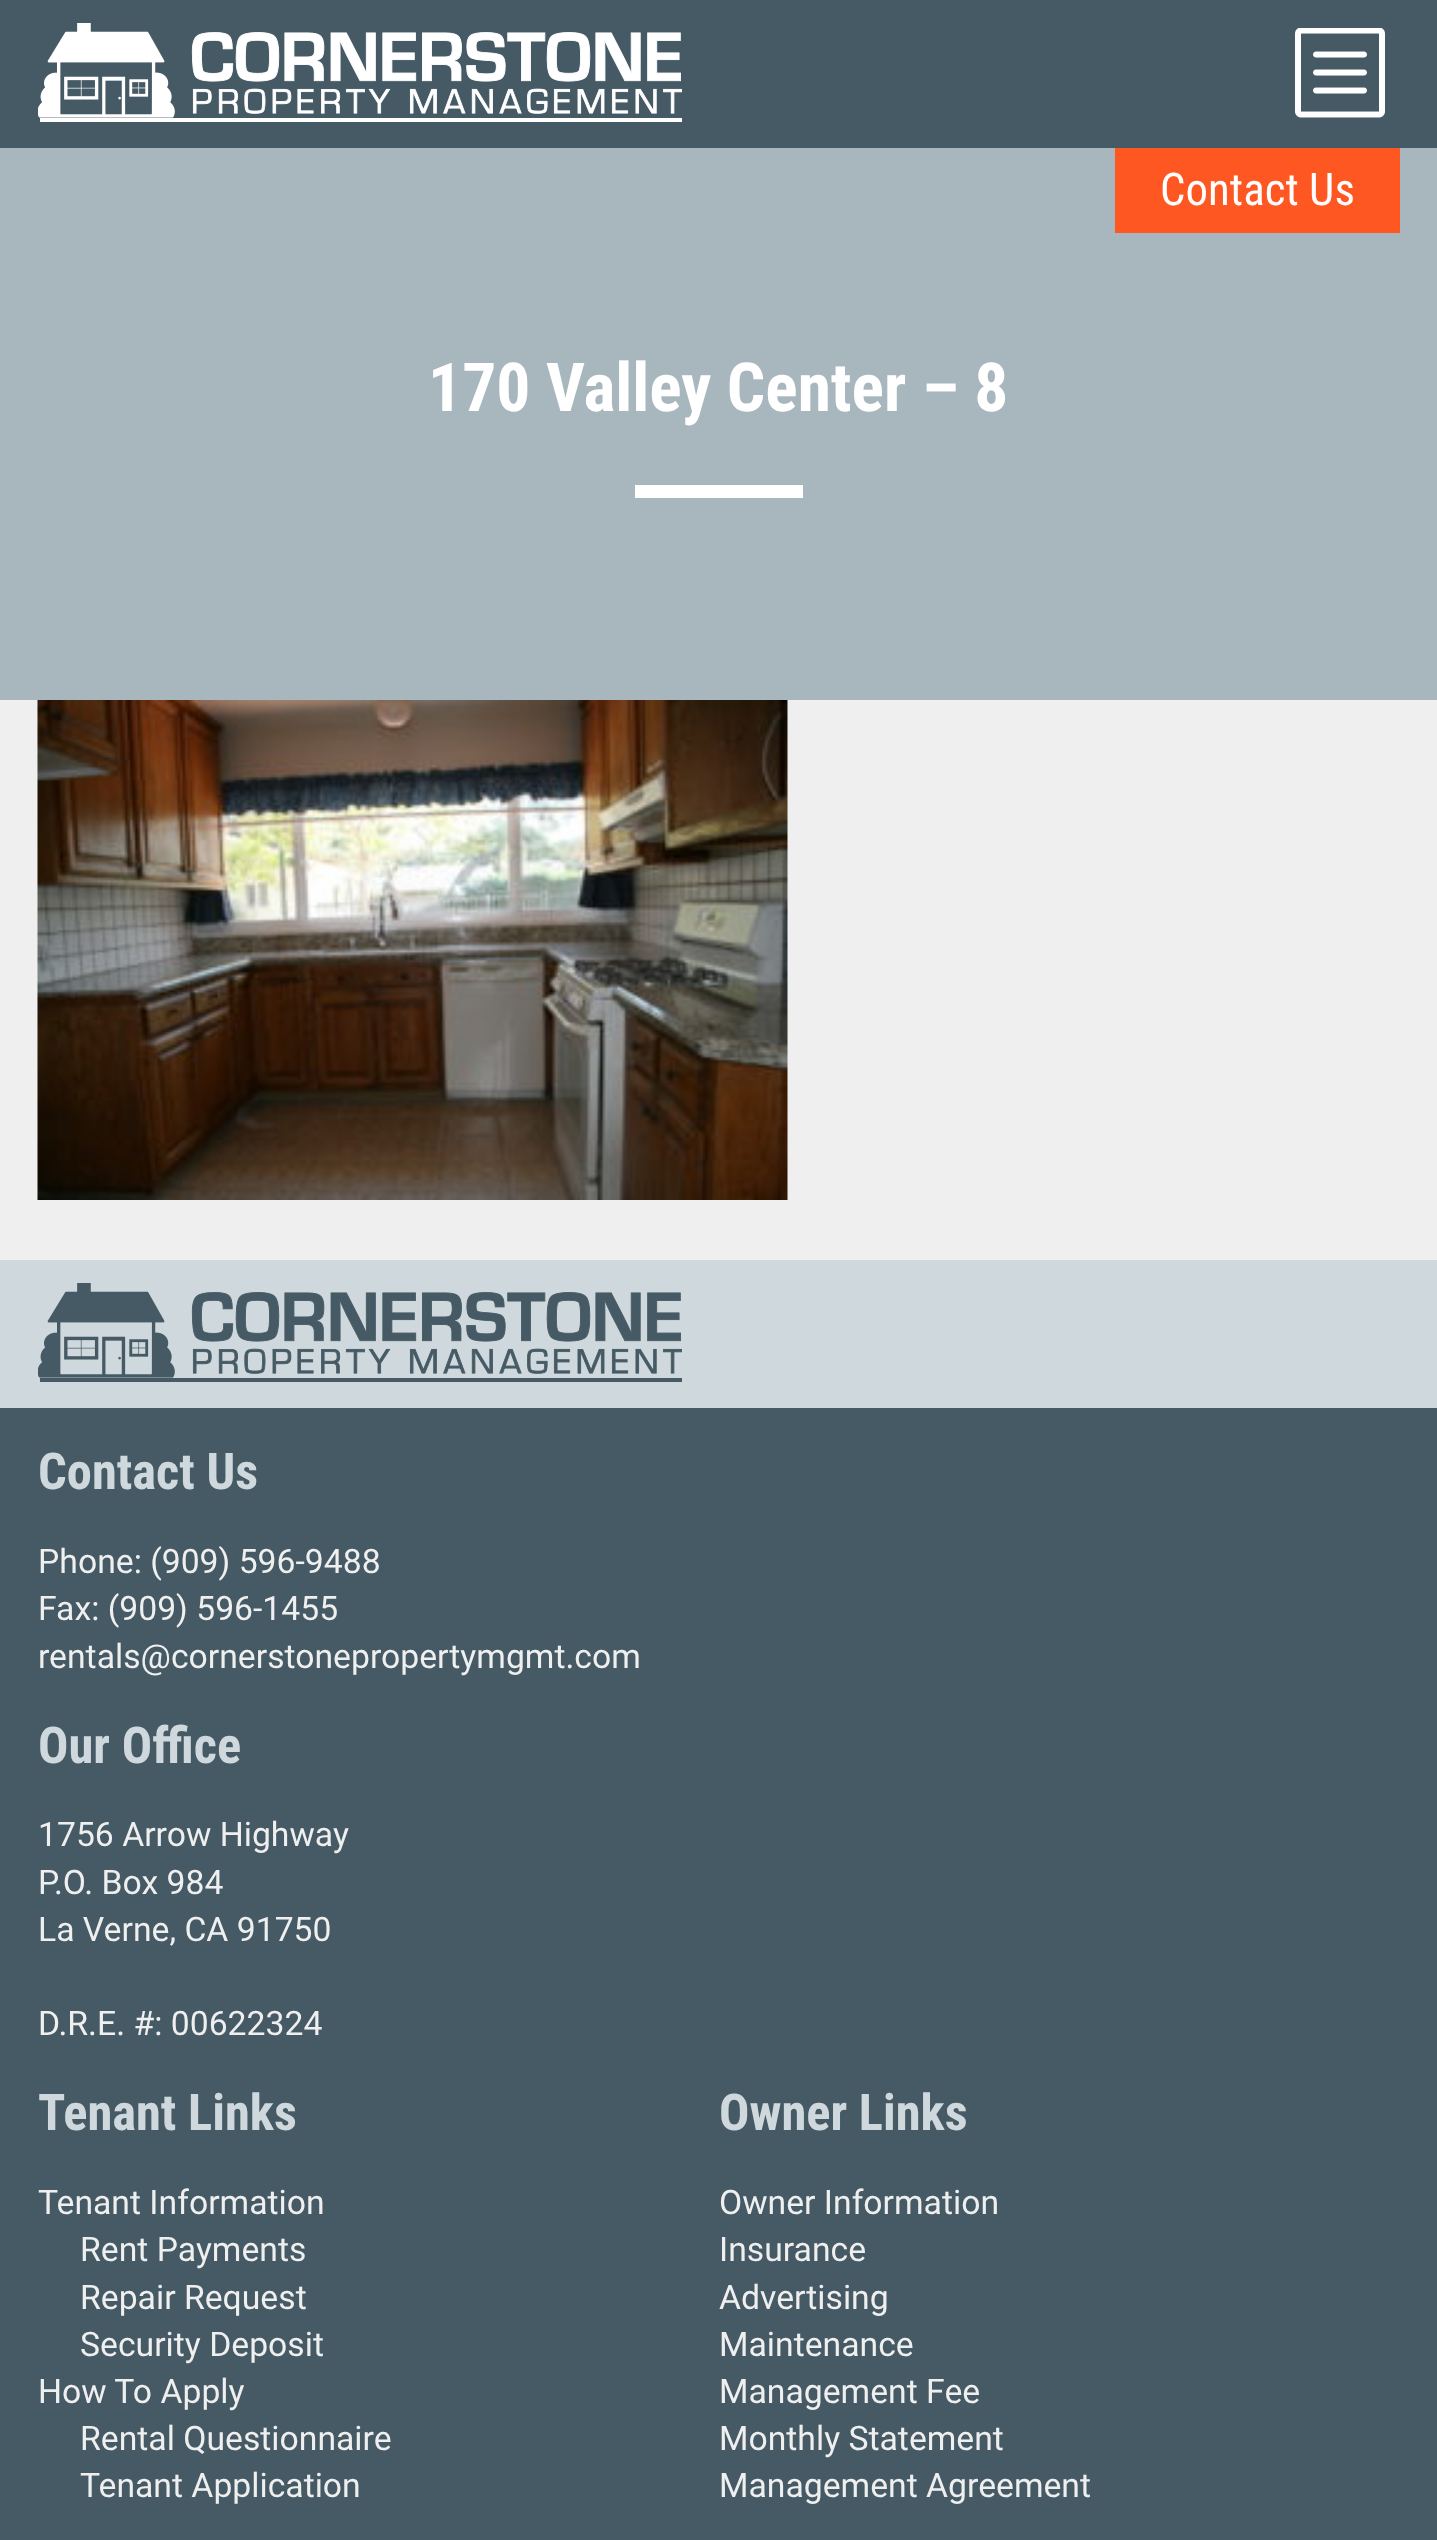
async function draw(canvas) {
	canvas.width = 1437;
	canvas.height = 2540;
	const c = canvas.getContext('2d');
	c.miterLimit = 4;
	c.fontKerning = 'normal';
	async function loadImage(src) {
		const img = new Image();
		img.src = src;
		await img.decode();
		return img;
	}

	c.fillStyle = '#efefef';
	c.fillRect(0, 0, 1437, 2540);
	c.fillStyle = '#455a64';
	c.fillRect(0, 0, 1437, 148);
	c.drawImage(await loadImage('img1.png'), 38, 23, 644, 99);
	c.drawImage(await loadImage('img2.png'), 1295, 28, 90, 90);
	c.fillStyle = '#a8b6bd';
	c.fillRect(0, 148, 1437, 552);
	c.fillStyle = '#ff5722';
	c.fillRect(1115, 148, 285, 85);
	c.font = '45px Roboto Condensed';
	c.fillStyle = '#fff';
	c.fillText('Contact Us', 1160, 205);
	c.font = 'bold 67.5px Roboto Condensed';
	c.fillText('170 Valley Center – 8', 428, 411);
	c.fillRect(635, 485, 168, 13);
	c.drawImage(await loadImage('img3.png'), 37, 700, 751, 500);
	c.fillStyle = '#455a64';
	c.fillRect(0, 1408, 1437, 1132);
	c.fillStyle = '#cfd8dc';
	c.fillRect(0, 1260, 1437, 148);
	c.drawImage(await loadImage('img4.png'), 38, 1283, 644, 99);
	c.font = 'bold 50.5px Roboto Condensed';
	c.fillText('Contact Us', 38, 1489);
	c.font = '33.75px Roboto';
	c.fillStyle = '#efefef';
	for (const [text, x, y] of [
		['Phone: (909) 596-9488', 38, 1573],
		['Fax: (909) 596-1455', 38, 1620],
		['rentals@cornerstonepropertymgmt.com', 38, 1668],
	]) {
		c.fillText(text, x, y);
	}
	c.font = 'bold 50.5px Roboto Condensed';
	c.fillStyle = '#cfd8dc';
	c.fillText('Our Office', 38, 1763);
	c.font = '33.75px Roboto';
	c.fillStyle = '#efefef';
	for (const [text, x, y] of [
		['1756 Arrow Highway', 38, 1846],
		['P.O. Box 984', 38, 1894],
		['La Verne, CA 91750', 38, 1941],
		['D.R.E. #: 00622324', 38, 2035],
	]) {
		c.fillText(text, x, y);
	}
	c.font = 'bold 50.5px Roboto Condensed';
	c.fillStyle = '#cfd8dc';
	c.fillText('Tenant Links', 38, 2130);
	c.font = '33.75px Roboto';
	c.fillStyle = '#efefef';
	for (const [text, x, y] of [
		['Tenant Information', 38, 2214],
		['Rent Payments', 80, 2261],
		['Repair Request', 80, 2309],
		['Security Deposit', 80, 2356],
		['How To Apply', 38, 2403],
		['Rental Questionnaire', 80, 2450],
		['Tenant Application', 80, 2497],
	]) {
		c.fillText(text, x, y);
	}
	c.font = 'bold 50.5px Roboto Condensed';
	c.fillStyle = '#cfd8dc';
	c.fillText('Owner Links', 719, 2130);
	c.font = '33.75px Roboto';
	c.fillStyle = '#efefef';
	for (const [text, x, y] of [
		['Owner Information', 719, 2214],
		['Insurance', 719, 2261],
		['Advertising', 719, 2309],
		['Maintenance', 719, 2356],
		['Management Fee', 719, 2403],
		['Monthly Statement', 719, 2450],
		['Management Agreement', 719, 2497],
	]) {
		c.fillText(text, x, y);
	}
}

draw(document.querySelector('canvas'));
